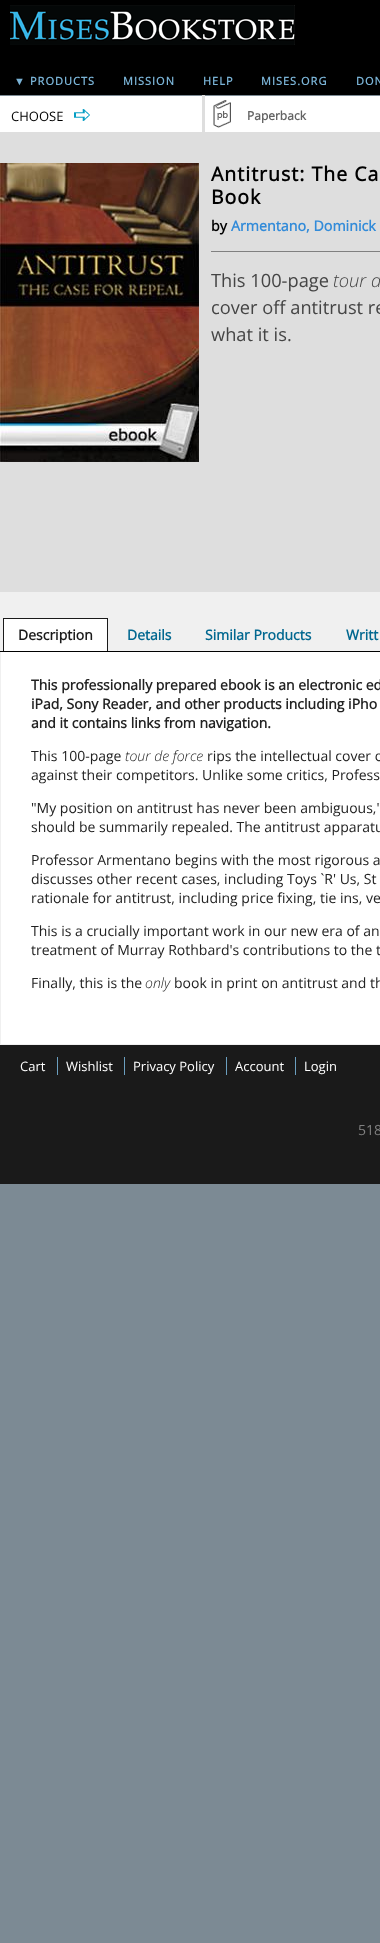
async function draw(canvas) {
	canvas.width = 380;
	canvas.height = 1943;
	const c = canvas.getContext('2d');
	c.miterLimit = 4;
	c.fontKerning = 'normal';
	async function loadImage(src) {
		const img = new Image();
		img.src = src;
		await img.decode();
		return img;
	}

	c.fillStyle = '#7c8a94';
	c.fillRect(0, 0, 380, 1943);
	c.fillStyle = '#000';
	c.fillRect(0, 0, 380, 95);
	c.drawImage(await loadImage('img1.png'), 10, 5, 285, 40);
	c.letterSpacing = '1px';
	c.font = 'bold 11px Liberation Sans';
	c.fillStyle = '#7ab3d6';
	c.fillText('▼', 14, 85);
	c.font = 'bold 11px Open Sans';
	for (const [text, x, y] of [
		['PRODUCTS', 30, 85],
		['MISSION', 123, 85],
		['HELP', 203, 85],
		['MISES.ORG', 261, 85],
		['DON', 356, 85],
	]) {
		c.fillText(text, x, y);
	}
	c.fillStyle = '#f0f0f0';
	c.fillRect(0, 652, 380, 393);
	c.fillStyle = '#fff';
	c.fillRect(0, 96, 380, 36);
	c.letterSpacing = '0px';
	c.font = '13px Open Sans';
	c.fillStyle = '#000';
	c.fillText('CHOOSE', 11, 121);
	c.drawImage(await loadImage('img2.png'), 74, 109, 16, 12);
	c.fillStyle = '#dedede';
	c.fillRect(202, 95, 3, 37);
	c.drawImage(await loadImage('img3.png'), 213, 100, 18, 28);
	c.font = 'bold 12px Open Sans';
	c.fillStyle = '#636363';
	c.fillText('Paperback', 247, 120);
	c.fillStyle = '#dedede';
	c.fillRect(0, 132, 380, 460);
	c.drawImage(await loadImage('img4.png'), 0, 163, 199, 299);
	c.letterSpacing = '1px';
	c.font = 'bold 19.5px Open Sans';
	c.fillStyle = '#000';
	c.fillText('Antitrust: The Ca', 211, 181);
	c.fillText('Book', 211, 204);
	c.fillStyle = '#808080';
	c.fillRect(211, 251, 169, 1);
	c.letterSpacing = '0px';
	c.font = 'bold 14.25px Open Sans';
	c.fillStyle = '#000';
	c.fillText('by', 211, 231);
	c.fillStyle = '#328bd9';
	c.fillText('Armentano, Dominick', 231, 231);
	c.font = '18.25px Open Sans';
	c.fillStyle = '#444';
	c.fillText('This 100-page', 211, 287);
	c.font = 'italic 300 18.25px Open Sans';
	c.fillText('tour d', 333, 287);
	c.font = '18.25px Open Sans';
	c.fillText('cover off antitrust re', 211, 314);
	c.fillText('what it is.', 211, 341);
	for (const [x, y, w, h, color] of [
		[1, 652, 379, 392, '#fff'],
		[0, 592, 380, 59, '#f0f0f0'],
		[0, 651, 380, 1, '#000'],
		[4, 619, 103, 32, '#fff'],
		[3, 618, 105, 1, '#1a1a1a'],
		[107, 618, 1, 33, '#1a1a1a'],
		[3, 618, 1, 33, '#1a1a1a'],
	]) {
		c.fillStyle = color;
		c.fillRect(x, y, w, h);
	}
	c.font = 'bold 14px Open Sans';
	c.fillText('Description', 18, 640);
	c.fillStyle = '#026890';
	for (const [text, x, y] of [
		['Details', 127, 640],
		['Similar Products', 205, 640],
		['Writt', 346, 640],
	]) {
		c.fillText(text, x, y);
	}
	c.fillStyle = '#222';
	for (const [text, x, y] of [
		['This professionally prepared ebook is an electronic ed', 31, 690],
		['iPad, Sony Reader, and other products including iPho', 31, 709],
		['and it contains links from navigation.', 31, 728],
	]) {
		c.fillText(text, x, y);
	}
	c.font = '14px Open Sans';
	c.fillText('This 100-page', 31, 761);
	c.font = 'italic 300 14px Open Sans';
	c.fillText('tour de force', 125, 761);
	c.font = '14px Open Sans';
	for (const [text, x, y] of [
		['rips the intellectual cover o', 207, 761],
		['against their competitors. Unlike some critics, Profess', 31, 780],
		['"My position on antitrust has never been ambiguous,"', 31, 813],
		['should be summarily repealed. The antitrust apparatu', 31, 832],
		['Professor Armentano begins with the most rigorous a', 31, 865],
		['discusses other recent cases, including Toys `R\' Us, St', 31, 884],
		['rationale for antitrust, including price fixing, tie ins, ve', 31, 903],
		['This is a crucially important work in our new era of an', 31, 936],
		['treatment of Murray Rothbard\'s contributions to the t', 31, 955],
		['Finally, this is the', 31, 988],
	]) {
		c.fillText(text, x, y);
	}
	c.font = 'italic 300 14px Open Sans';
	c.fillText('only', 145, 988);
	c.font = '14px Open Sans';
	c.fillText('book in print on antitrust and th', 174, 988);
	c.fillStyle = '#1a1a1a';
	c.fillRect(0, 1045, 380, 139);
	c.font = '13px Open Sans';
	c.fillStyle = '#fff';
	c.fillText('Cart', 20, 1071);
	c.fillText('Wishlist', 66, 1071);
	c.fillStyle = '#6b9fbf';
	c.fillRect(57, 1057, 1, 18);
	c.fillStyle = '#fff';
	c.fillText('Privacy Policy', 133, 1071);
	c.fillStyle = '#6b9fbf';
	c.fillRect(124, 1057, 1, 18);
	c.fillStyle = '#fff';
	c.fillText('Account', 235, 1071);
	c.fillStyle = '#6b9fbf';
	c.fillRect(226, 1057, 1, 18);
	c.fillStyle = '#fff';
	c.fillText('Login', 304, 1071);
	c.fillStyle = '#6b9fbf';
	c.fillRect(295, 1057, 1, 18);
	c.font = '14px Open Sans';
	c.fillStyle = '#808080';
	c.fillText('518', 358, 1135);
}

draw(document.querySelector('canvas'));
